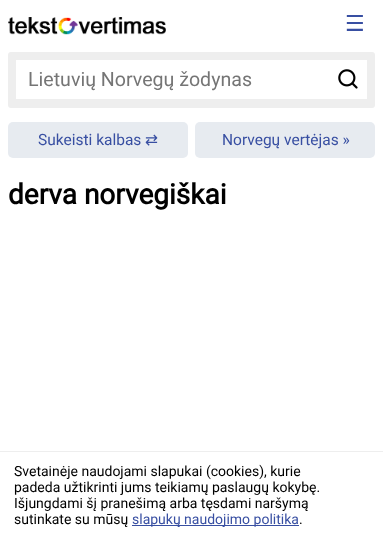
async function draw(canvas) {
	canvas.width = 383;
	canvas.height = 538;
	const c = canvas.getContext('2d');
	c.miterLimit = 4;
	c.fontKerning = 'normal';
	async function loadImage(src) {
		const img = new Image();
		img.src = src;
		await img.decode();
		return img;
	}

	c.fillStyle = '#fff';
	c.fillRect(0, 0, 383, 538);
	c.drawImage(await loadImage('img1.png'), 8, 17, 158, 18);
	c.font = '22px DejaVu Sans';
	c.fillStyle = '#384fa2';
	c.fillText('☰', 345, 31);
	c.fillStyle = '#eee';
	c.beginPath();
	c.roundRect(8, 52, 367, 56, 3);
	c.fill();
	c.fillStyle = '#fff';
	c.fillRect(16, 60, 351, 39);
	c.font = '19.6px Roboto';
	c.fillStyle = '#757575';
	c.fillText('Lietuvių Norvegų žodynas', 28, 86);
	c.drawImage(await loadImage('img2.png'), 338, 69, 20, 20);
	c.fillStyle = '#e7ebf0';
	c.beginPath();
	c.roundRect(8, 122, 180, 36, 5);
	c.fill();
	c.font = '15.5px Roboto';
	c.fillStyle = '#384fa2';
	c.fillText('Sukeisti kalbas', 38, 145);
	c.font = '15.5px DejaVu Sans';
	c.fillText('⇄', 145, 145);
	c.fillStyle = '#e7ebf0';
	c.beginPath();
	c.roundRect(195, 122, 180, 36, 5);
	c.fill();
	c.font = '15.5px Roboto';
	c.fillStyle = '#384fa2';
	c.fillText('Norvegų vertėjas »', 222, 145);
	c.font = 'bold 28px Roboto';
	c.fillStyle = '#000';
	c.fillText('derva norvegiškai', 8, 204);
	c.fillStyle = '#eee';
	c.fillRect(0, 451, 383, 1);
	c.font = '14px Roboto';
	c.fillStyle = '#000';
	for (const [text, x, y] of [
		['Svetainėje naudojami slapukai (cookies), kurie', 14, 476],
		['padeda užtikrinti jums teikiamų paslaugų kokybę.', 14, 492],
		['Išjungdami šį pranešimą arba tęsdami naršymą', 14, 508],
		['sutinkate su mūsų', 14, 524],
	]) {
		c.fillText(text, x, y);
	}
	c.fillStyle = '#384fa2';
	c.fillRect(132, 525, 167, 1);
	c.fillText('slapukų naudojimo politika', 132, 524);
	c.fillStyle = '#000';
	c.fillText('.', 299, 524);
}

draw(document.querySelector('canvas'));
